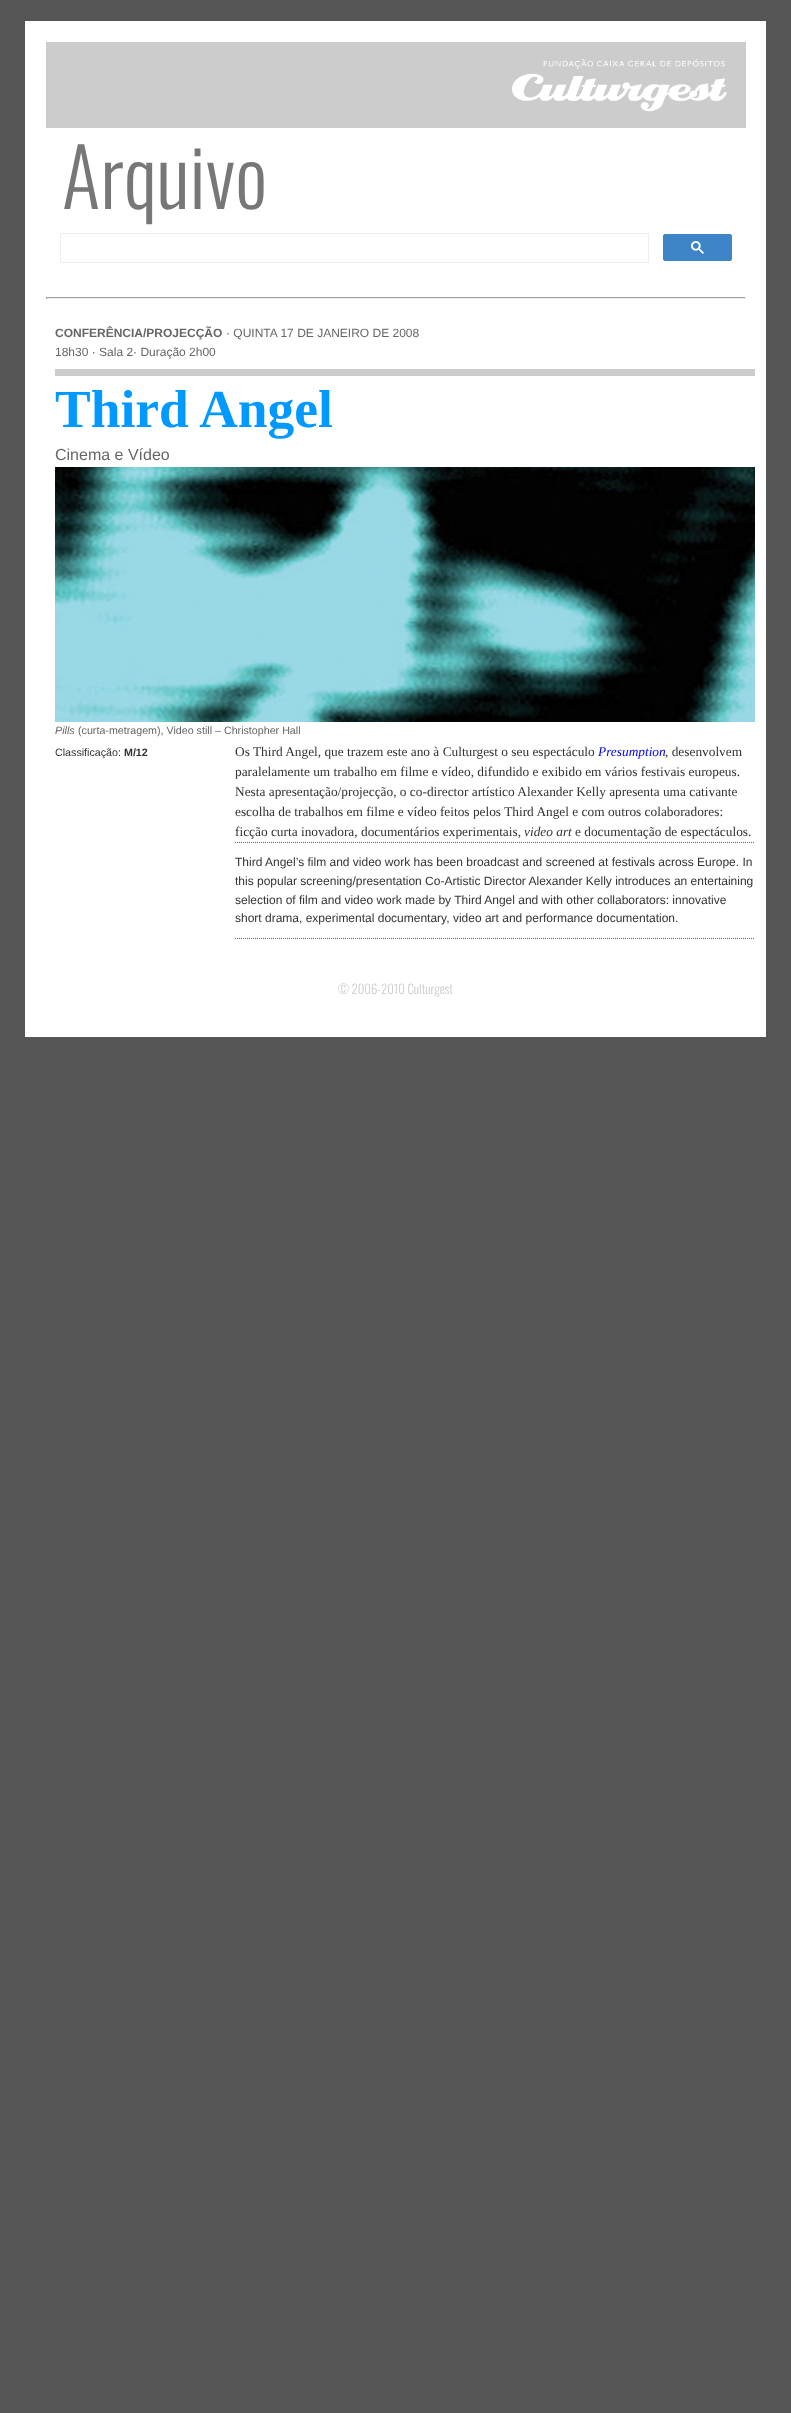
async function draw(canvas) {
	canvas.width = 791;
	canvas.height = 2413;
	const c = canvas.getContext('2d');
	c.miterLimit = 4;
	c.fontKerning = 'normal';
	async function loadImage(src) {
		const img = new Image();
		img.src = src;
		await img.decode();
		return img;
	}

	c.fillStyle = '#555';
	c.fillRect(0, 0, 791, 2413);
	c.fillStyle = '#fff';
	c.fillRect(25, 21, 741, 1016);
	c.fillStyle = '#ccc';
	c.fillRect(46, 42, 700, 86);
	c.drawImage(await loadImage('img1.png'), 512, 58, 215, 54);
	c.font = '300 80px Oswald';
	c.fillStyle = '#777';
	c.fillText('Arquivo', 62, 209);
	c.strokeStyle = '#eee';
	c.strokeRect(60.5, 233.5, 588, 29);
	c.fillStyle = '#3d85c6';
	c.beginPath();
	c.roundRect(663.5, 234.5, 68, 26, 1.5);
	c.fill();
	c.strokeStyle = '#3d85c6';
	c.stroke();
	c.drawImage(await loadImage('img2.png'), 691, 241, 13, 13);
	for (const [x, y, w, h, color] of [
		[46, 297, 700, 1, '#9f9f9f'],
		[745, 297, 1, 2, '#eee'],
		[46, 298, 700, 1, '#eee'],
		[46, 297, 1, 2, '#9f9f9f'],
	]) {
		c.fillStyle = color;
		c.fillRect(x, y, w, h);
	}
	c.font = 'bold 12px Liberation Sans';
	c.fillStyle = '#666';
	c.fillText('CONFERÊNCIA/PROJECÇÃO', 55, 337);
	c.font = '12px Liberation Sans';
	c.fillText('· QUINTA 17 DE JANEIRO DE 2008', 226, 337);
	c.fillText('18h30 · Sala 2· Duração 2h00', 55, 356);
	c.fillStyle = '#ccc';
	c.fillRect(55, 369, 700, 7);
	c.font = 'bold 53.5px Liberation Serif';
	c.fillStyle = '#09f';
	c.fillText('Third Angel', 55, 427);
	c.font = '16px Liberation Sans';
	c.fillStyle = '#666';
	c.fillText('Cinema e Vídeo', 55, 460);
	c.drawImage(await loadImage('img3.png'), 55, 467, 700, 255);
	c.font = 'italic 10.7px Liberation Sans';
	c.fillText('Pills', 55, 734);
	c.font = '10.7px Liberation Sans';
	c.fillText('(curta-metragem), Video still – Christopher Hall', 78, 734);
	c.fillStyle = '#333';
	c.fillText('Classificação:', 55, 756);
	c.font = 'bold 10.7px Liberation Sans';
	c.fillText('M/12', 124, 756);
	c.font = '13.35px Liberation Serif';
	c.fillText('Os Third Angel, que trazem este ano à Culturgest o seu espectáculo', 235, 756);
	c.font = 'italic 13.35px Liberation Serif';
	c.fillStyle = '#00e';
	c.fillText('Presumption', 598, 756);
	c.font = '13.35px Liberation Serif';
	c.fillStyle = '#333';
	for (const [text, x, y] of [
		[', desenvolvem', 665, 756],
		['paralelamente um trabalho em filme e vídeo, difundido e exibido em vários festivais europeus.', 235, 776],
		['Nesta apresentação/projecção, o co-director artístico Alexander Kelly apresenta uma cativante', 235, 796],
		['escolha de trabalhos em filme e vídeo feitos pelos Third Angel e com outros colaboradores:', 235, 816],
		['ficção curta inovadora, documentários experimentais,', 235, 836],
	]) {
		c.fillText(text, x, y);
	}
	c.font = 'italic 13.35px Liberation Serif';
	c.fillText('video art', 524, 836);
	c.font = '13.35px Liberation Serif';
	c.fillText('e documentação de espectáculos.', 575, 836);
	c.beginPath();
	c.moveTo(235, 842.5);
	c.lineTo(755, 842.5);
	c.strokeStyle = '#666';
	c.setLineDash([1, 1]);
	c.stroke();
	c.beginPath();
	c.moveTo(235, 938.5);
	c.lineTo(755, 938.5);
	c.stroke();
	c.font = '12px Liberation Sans';
	for (const [text, x, y] of [
		['Third Angel’s film and video work has been broadcast and screened at festivals across Europe. In', 235, 866],
		['this popular screening/presentation Co-Artistic Director Alexander Kelly introduces an entertaining', 235, 885],
		['selection of film and video work made by Third Angel and with other collaborators: innovative', 235, 904],
		['short drama, experimental documentary, video art and performance documentation.', 235, 922],
	]) {
		c.fillText(text, x, y);
	}
	c.font = '300 12.75px Oswald';
	c.fillStyle = '#ccc';
	c.fillText('© 2006-2010 Culturgest', 338, 994);
}

draw(document.querySelector('canvas'));
